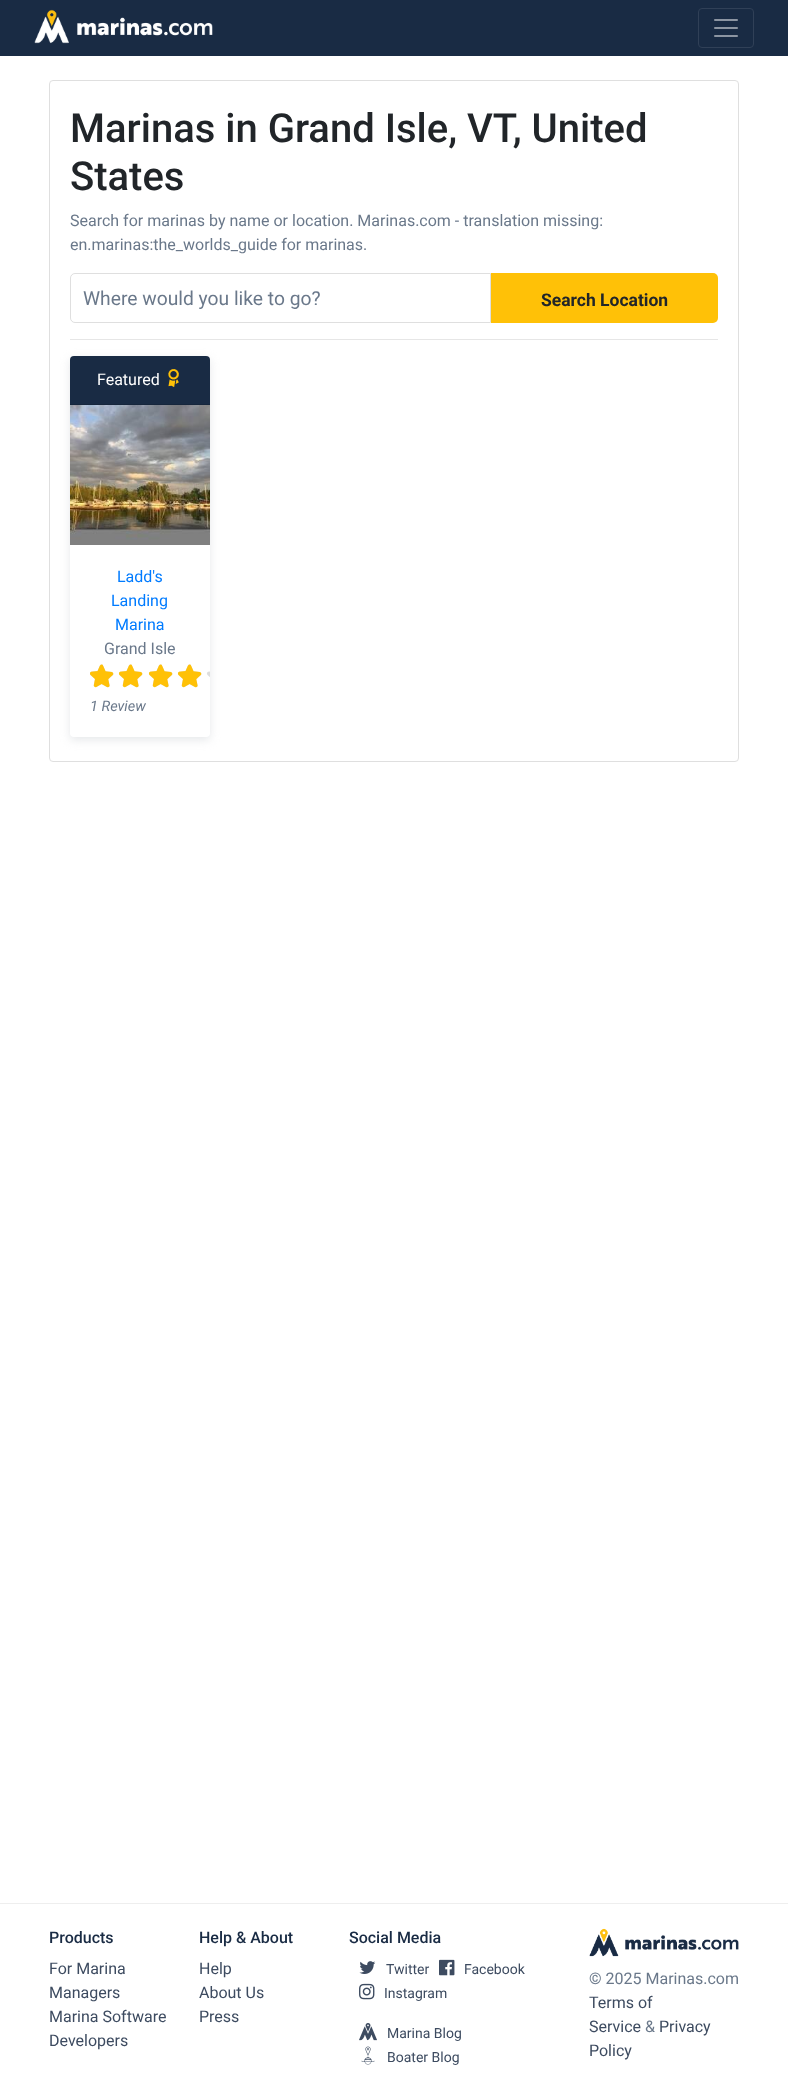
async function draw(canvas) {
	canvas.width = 788;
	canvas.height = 2097;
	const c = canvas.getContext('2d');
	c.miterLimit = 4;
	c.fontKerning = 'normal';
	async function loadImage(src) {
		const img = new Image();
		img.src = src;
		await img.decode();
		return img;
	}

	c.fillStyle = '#fff';
	c.fillRect(0, 0, 788, 2097);
	c.fillStyle = '#192b44';
	c.fillRect(0, 0, 788, 56);
	c.drawImage(await loadImage('img1.png'), 34, 9, 179, 35);
	c.beginPath();
	c.roundRect(698.5, 8.5, 55, 39, 3.5);
	c.strokeStyle = '#304057';
	c.stroke();
	c.drawImage(await loadImage('img2.png'), 714, 19, 24, 18);
	c.beginPath();
	c.roundRect(49.5, 80.5, 689, 681, 3.5);
	c.strokeStyle = '#dfdfdf';
	c.stroke();
	c.font = '500 40px Roboto';
	c.fillStyle = '#212529';
	c.fillText('Marinas in Grand Isle, VT, United', 70, 142);
	c.fillText('States', 70, 190);
	c.font = '16px Roboto';
	c.fillStyle = '#6a788a';
	c.fillText('Search for marinas by name or location. Marinas.com - translation missing:', 70, 226);
	c.fillText('en.marinas:the_worlds_guide for marinas.', 70, 250);
	c.beginPath();
	c.roundRect(70.5, 273.5, 420, 49, [4.5, 0, 0, 4.5]);
	c.stroke();
	c.font = '19.25px Roboto';
	c.fillText('Where would you like to go?', 83, 305);
	c.fillStyle = '#ffc107';
	c.beginPath();
	c.roundRect(491, 273, 227, 50, [0, 5, 5, 0]);
	c.fill();
	c.font = 'bold 17.5px Roboto';
	c.fillStyle = '#212529';
	c.fillText('Search Location', 541, 306);
	c.fillStyle = '#e6e6e6';
	c.fillRect(70, 339, 648, 1);
	c.fillStyle = '#cdd2d680';
	c.filter = 'blur(5px)';
	c.beginPath();
	c.roundRect(70, 359, 140, 381, 4);
	c.fill();
	c.filter = 'none';
	c.fillStyle = '#fff';
	c.beginPath();
	c.roundRect(70, 356, 140, 381, 4);
	c.fill();
	c.fillStyle = '#192b44';
	c.beginPath();
	c.roundRect(70, 356, 140, 49, [4, 4, 0, 0]);
	c.fill();
	c.fillStyle = '#16263c';
	c.fillRect(70, 404, 140, 1);
	c.font = '16px Roboto';
	c.fillStyle = '#fff';
	c.fillText('Featured', 97, 385);
	c.drawImage(await loadImage('img3.png'), 168, 369, 11, 18);
	c.drawImage(await loadImage('img4.png'), 70, 405, 140, 140);
	c.fillStyle = '#007bff';
	for (const [text, x, y] of [
		['Ladd\'s', 117, 582],
		['Landing', 111, 606],
		['Marina', 115, 630],
	]) {
		c.fillText(text, x, y);
	}
	c.fillStyle = '#6a788a';
	c.fillText('Grand Isle', 104, 654);
	c.drawImage(await loadImage('img5.png'), 90, 664, 24, 24);
	c.drawImage(await loadImage('img5.png'), 119, 664, 24, 24);
	c.drawImage(await loadImage('img5.png'), 149, 664, 24, 24);
	c.drawImage(await loadImage('img5.png'), 178, 664, 24, 24);
	c.drawImage(await loadImage('img6.png'), 207, 671, 3, 6);
	c.drawImage(await loadImage('img7.png'), 90, 664, 24, 24);
	c.drawImage(await loadImage('img8.png'), 118, 664, 25, 24);
	c.drawImage(await loadImage('img8.png'), 148, 664, 25, 24);
	c.drawImage(await loadImage('img8.png'), 177, 664, 25, 24);
	c.fillStyle = '#fffefa';
	c.fillRect(206, 673, 1, 1);
	c.font = 'italic 14.5px Roboto';
	c.fillStyle = '#6a788a';
	c.fillText('1 Review', 90, 711);
	c.fillStyle = '#eee';
	c.fillRect(0, 1903, 788, 1);
	c.font = '500 16px Roboto';
	c.fillStyle = '#192b44';
	c.fillText('Products', 49, 1943);
	c.font = '16px Roboto';
	c.fillStyle = '#3d4b60';
	for (const [text, x, y] of [
		['For Marina', 49, 1974],
		['Managers', 49, 1998],
		['Marina Software', 49, 2022],
		['Developers', 49, 2046],
	]) {
		c.fillText(text, x, y);
	}
	c.font = '500 16px Roboto';
	c.fillStyle = '#192b44';
	c.fillText('Help & About', 199, 1943);
	c.font = '16px Roboto';
	c.fillStyle = '#3d4b60';
	for (const [text, x, y] of [
		['Help', 199, 1974],
		['About Us', 199, 1998],
		['Press', 199, 2022],
	]) {
		c.fillText(text, x, y);
	}
	c.font = '500 16px Roboto';
	c.fillStyle = '#192b44';
	c.fillText('Social Media', 349, 1943);
	c.drawImage(await loadImage('img9.png'), 359, 1961, 17, 13);
	c.font = '14px Roboto';
	c.fillStyle = '#3d4b60';
	c.fillText('Twitter', 386, 1974);
	c.drawImage(await loadImage('img10.png'), 439, 1959, 16, 17);
	c.fillText('Facebook', 464, 1974);
	c.drawImage(await loadImage('img11.png'), 359, 1983, 16, 17);
	c.fillText('Instagram', 384, 1998);
	c.drawImage(await loadImage('img12.png'), 359, 2023, 18, 18);
	c.fillText('Marina Blog', 387, 2038);
	c.drawImage(await loadImage('img13.png'), 361, 2046, 14, 19);
	c.fillText('Boater Blog', 387, 2062);
	c.drawImage(await loadImage('img14.png'), 589, 1928, 150, 29);
	c.font = '16px Roboto';
	c.fillStyle = '#6a788a';
	c.fillText('© 2025 Marinas.com', 589, 1984);
	c.fillStyle = '#3d4b60';
	c.fillText('Terms of', 589, 2008);
	c.fillText('Service', 589, 2032);
	c.fillStyle = '#6a788a';
	c.fillText('&', 645, 2032);
	c.fillStyle = '#3d4b60';
	c.fillText('Privacy', 659, 2032);
	c.fillText('Policy', 589, 2056);
}

draw(document.querySelector('canvas'));
